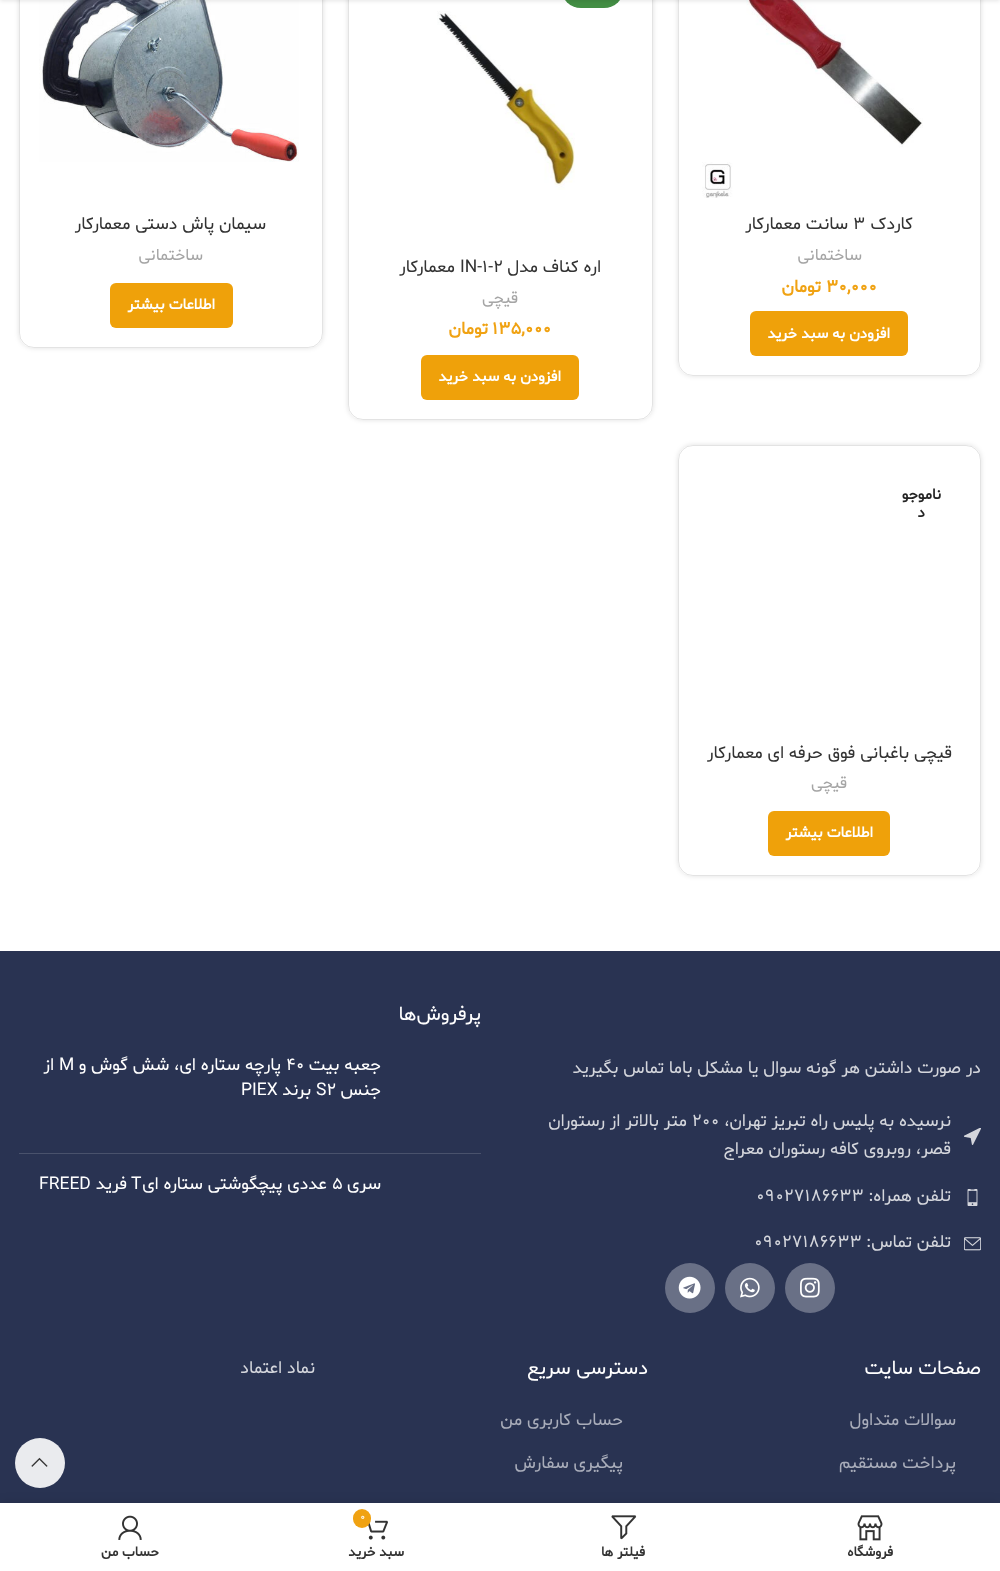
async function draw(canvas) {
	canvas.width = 1000;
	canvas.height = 1571;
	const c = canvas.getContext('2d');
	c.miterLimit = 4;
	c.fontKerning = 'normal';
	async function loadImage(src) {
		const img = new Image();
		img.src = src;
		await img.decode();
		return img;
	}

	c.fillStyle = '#fff';
	c.fillRect(0, 0, 1000, 1571);
	c.save();
	c.beginPath();
	c.moveTo(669, 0);
	c.lineTo(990, 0);
	c.lineTo(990, 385);
	c.lineTo(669, 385);
	c.closePath();
	c.moveTo(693, -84);
	c.lineTo(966, -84);
	c.bezierCurveTo(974.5, -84, 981, -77.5, 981, -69);
	c.lineTo(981, 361);
	c.bezierCurveTo(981, 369.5, 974.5, 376, 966, 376);
	c.lineTo(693, 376);
	c.bezierCurveTo(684.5, 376, 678, 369.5, 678, 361);
	c.lineTo(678, -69);
	c.bezierCurveTo(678, -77.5, 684.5, -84, 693, -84);
	c.closePath();
	c.clip('evenodd');
	c.fillStyle = '#0000001f';
	c.filter = 'blur(2.5px)';
	c.beginPath();
	c.roundRect(678, -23, 303, 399, 15);
	c.fill();
	c.filter = 'none';
	c.restore();
	c.beginPath();
	c.roundRect(678.5, -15.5, 302, 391, 14.5);
	c.strokeStyle = '#e4e4e4';
	c.stroke();
	c.drawImage(await loadImage('img1.png'), 702, 0, 221, 198);
	c.save();
	c.beginPath();
	c.moveTo(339, 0);
	c.lineTo(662, 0);
	c.lineTo(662, 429);
	c.lineTo(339, 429);
	c.closePath();
	c.moveTo(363, -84);
	c.lineTo(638, -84);
	c.bezierCurveTo(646.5, -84, 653, -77.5, 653, -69);
	c.lineTo(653, 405);
	c.bezierCurveTo(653, 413.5, 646.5, 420, 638, 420);
	c.lineTo(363, 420);
	c.bezierCurveTo(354.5, 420, 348, 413.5, 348, 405);
	c.lineTo(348, -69);
	c.bezierCurveTo(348, -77.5, 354.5, -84, 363, -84);
	c.closePath();
	c.clip('evenodd');
	c.fillStyle = '#0000001f';
	c.filter = 'blur(2.5px)';
	c.beginPath();
	c.roundRect(348, -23, 305, 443, 15);
	c.fill();
	c.filter = 'none';
	c.restore();
	c.beginPath();
	c.roundRect(348.5, -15.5, 304, 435, 14.5);
	c.strokeStyle = '#0000001c';
	c.stroke();
	c.fillStyle = '#438e44';
	c.beginPath();
	c.roundRect(561, -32, 63, 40, 31.5);
	c.fill();
	c.save();
	c.beginPath();
	c.moveTo(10, 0);
	c.lineTo(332, 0);
	c.lineTo(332, 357);
	c.lineTo(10, 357);
	c.closePath();
	c.moveTo(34, -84);
	c.lineTo(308, -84);
	c.bezierCurveTo(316.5, -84, 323, -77.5, 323, -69);
	c.lineTo(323, 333);
	c.bezierCurveTo(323, 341.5, 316.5, 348, 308, 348);
	c.lineTo(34, 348);
	c.bezierCurveTo(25.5, 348, 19, 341.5, 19, 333);
	c.lineTo(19, -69);
	c.bezierCurveTo(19, -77.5, 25.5, -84, 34, -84);
	c.closePath();
	c.clip('evenodd');
	c.fillStyle = '#0000001f';
	c.filter = 'blur(2.5px)';
	c.beginPath();
	c.roundRect(19, -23, 304, 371, 15);
	c.fill();
	c.filter = 'none';
	c.restore();
	c.beginPath();
	c.roundRect(19.5, -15.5, 303, 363, 14.5);
	c.stroke();
	c.drawImage(await loadImage('img3.png'), 39, 0, 260, 162);
	c.fillStyle = '#0000001a';
	c.filter = 'blur(2px)';
	c.beginPath();
	c.rect(0, -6, 1000, 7);
	c.fill();
	c.filter = 'none';
	c.direction = 'rtl';
	c.font = '17.5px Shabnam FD';
	c.fillStyle = '#333';
	c.fillText('کاردک', 913, 229);
	c.direction = 'ltr';
	c.fillText('3', 853, 229);
	c.direction = 'rtl';
	c.fillText('سانت معمارکار', 848, 229);
	c.font = '16.5px Shabnam FD';
	c.fillStyle = '#a5a5a5';
	c.fillText('ساختمانی', 862, 260);
	c.direction = 'ltr';
	c.font = 'bold 17.5px Shabnam FD';
	c.fillStyle = '#f0a212';
	c.fillText('30,000', 826, 292);
	c.direction = 'rtl';
	c.fillText('تومان', 821, 292);
	c.fillStyle = '#efa10a';
	c.beginPath();
	c.roundRect(750, 311, 158, 45, 6);
	c.fill();
	c.font = 'bold 15px Shabnam FD';
	c.fillStyle = '#fff';
	c.fillText('افزودن به سبد خرید', 890, 338);
	c.drawImage(await loadImage('img2.png'), 437, 11, 138, 179);
	c.font = '17.5px Shabnam FD';
	c.fillStyle = '#333';
	c.fillText('اره کناف مدل', 601, 272);
	c.direction = 'ltr';
	c.fillText('IN-1-2', 460, 272);
	c.direction = 'rtl';
	c.fillText('معمارکار', 455, 272);
	c.font = '16.5px Shabnam FD';
	c.fillStyle = '#a5a5a5';
	c.fillText('قیچی', 518, 303);
	c.direction = 'ltr';
	c.font = 'bold 17.5px Shabnam FD';
	c.fillStyle = '#f0a212';
	c.fillText('135,000', 492, 334);
	c.direction = 'rtl';
	c.fillText('تومان', 488, 334);
	c.fillStyle = '#efa10a';
	c.beginPath();
	c.roundRect(421, 355, 158, 45, 6);
	c.fill();
	c.font = 'bold 15px Shabnam FD';
	c.fillStyle = '#fff';
	c.fillText('افزودن به سبد خرید', 561, 381);
	c.font = '17.5px Shabnam FD';
	c.fillStyle = '#333';
	c.fillText('سیمان پاش دستی معمارکار', 266, 229);
	c.font = '16.5px Shabnam FD';
	c.fillStyle = '#a5a5a5';
	c.fillText('ساختمانی', 203, 260);
	c.fillStyle = '#efa10a';
	c.beginPath();
	c.roundRect(110, 283, 123, 45, 6);
	c.fill();
	c.font = 'bold 15px Shabnam FD';
	c.fillStyle = '#fff';
	c.fillText('اطلاعات بیشتر', 215, 309);
	c.save();
	c.beginPath();
	c.moveTo(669, 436);
	c.lineTo(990, 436);
	c.lineTo(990, 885);
	c.lineTo(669, 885);
	c.closePath();
	c.moveTo(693, 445);
	c.lineTo(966, 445);
	c.bezierCurveTo(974.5, 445, 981, 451.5, 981, 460);
	c.lineTo(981, 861);
	c.bezierCurveTo(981, 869.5, 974.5, 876, 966, 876);
	c.lineTo(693, 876);
	c.bezierCurveTo(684.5, 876, 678, 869.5, 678, 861);
	c.lineTo(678, 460);
	c.bezierCurveTo(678, 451.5, 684.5, 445, 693, 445);
	c.closePath();
	c.clip('evenodd');
	c.fillStyle = '#0000001f';
	c.filter = 'blur(2.5px)';
	c.beginPath();
	c.roundRect(678, 445, 303, 431, 15);
	c.fill();
	c.filter = 'none';
	c.restore();
	c.beginPath();
	c.roundRect(678.5, 445.5, 302, 430, 14.5);
	c.stroke();
	c.fillStyle = '#242424';
	c.fillText('ناموجو', 941, 499);
	c.fillText('د', 925, 517);
	c.font = '17.5px Shabnam FD';
	c.fillStyle = '#333';
	c.fillText('قیچی باغبانی فوق حرفه ای معمارکار', 952, 758);
	c.font = '16.5px Shabnam FD';
	c.fillStyle = '#a5a5a5';
	c.fillText('قیچی', 847, 788);
	c.fillStyle = '#efa10a';
	c.beginPath();
	c.roundRect(768, 811, 122, 45, 6);
	c.fill();
	c.font = 'bold 15px Shabnam FD';
	c.fillStyle = '#fff';
	c.fillText('اطلاعات بیشتر', 873, 837);
	c.fillStyle = '#293352';
	c.fillRect(0, 951, 1000, 552);
	c.font = '17.5px Shabnam FD';
	c.fillStyle = '#d4d6dc';
	c.fillText('در صورت داشتن هر گونه سوال یا مشکل باما تماس بگیرید', 981, 1073);
	c.drawImage(await loadImage('img4.png'), 964, 1128, 17, 17);
	c.fillText('نرسیده به پلیس راه تبریز تهران،', 951, 1126);
	c.direction = 'ltr';
	c.fillText('200', 692, 1126);
	c.direction = 'rtl';
	c.fillText('متر بالاتر از رستوران', 687, 1126);
	c.fillText('قصر، روبروی کافه رستوران معراج', 951, 1154);
	c.drawImage(await loadImage('img5.png'), 967, 1189, 11, 17);
	c.fillText('تلفن همراه:', 951, 1201);
	c.direction = 'ltr';
	c.fillText('09027186633', 756, 1201);
	c.drawImage(await loadImage('img6.png'), 964, 1237, 17, 14);
	c.direction = 'rtl';
	c.fillText('تلفن تماس:', 951, 1247);
	c.direction = 'ltr';
	c.fillText('09027186633', 754, 1247);
	c.fillStyle = '#697086';
	c.beginPath();
	c.arc(810, 1288, 25, 0, 2 * Math.PI);
	c.fill();
	c.drawImage(await loadImage('img7.png'), 800, 1277, 20, 21);
	c.beginPath();
	c.arc(750, 1288, 25, 0, 2 * Math.PI);
	c.fill();
	c.drawImage(await loadImage('img8.png'), 740, 1277, 20, 21);
	c.beginPath();
	c.arc(690, 1288, 25, 0, 2 * Math.PI);
	c.fill();
	c.drawImage(await loadImage('img9.png'), 678, 1276, 23, 23);
	c.direction = 'rtl';
	c.font = '20px Shabnam FD';
	c.fillStyle = '#fff';
	c.fillText('پرفروش‌ها', 481, 1020);
	c.fillStyle = '#49526c';
	c.fillRect(19, 1153, 462, 1);
	c.font = '17.5px Shabnam FD';
	c.fillStyle = '#fff';
	c.fillText('جعبه بیت', 381, 1070);
	c.direction = 'ltr';
	c.fillText('40', 286, 1070);
	c.direction = 'rtl';
	c.fillText('پارچه ستاره ای، شش گوش و', 281, 1070);
	c.direction = 'ltr';
	c.fillText('M', 59, 1070);
	c.direction = 'rtl';
	c.fillText('از', 54, 1070);
	c.fillText('جنس', 381, 1095);
	c.direction = 'ltr';
	c.fillText('S2', 316, 1095);
	c.direction = 'rtl';
	c.fillText('برند', 311, 1095);
	c.direction = 'ltr';
	c.fillText('PIEX', 241, 1095);
	c.direction = 'rtl';
	c.fillText('سری', 381, 1189);
	c.direction = 'ltr';
	c.fillText('5', 332, 1189);
	c.direction = 'rtl';
	c.fillText('عددی پیچگوشتی ستاره ای', 327, 1189);
	c.direction = 'ltr';
	c.fillText('T', 131, 1189);
	c.direction = 'rtl';
	c.fillText('فرید', 127, 1189);
	c.direction = 'ltr';
	c.fillText('FREED', 39, 1189);
	c.direction = 'rtl';
	c.font = '20px Shabnam FD';
	c.fillText('صفحات سایت', 981, 1374);
	c.font = '17.5px Shabnam FD';
	c.fillStyle = '#a9adba';
	c.fillText('سوالات متداول', 956, 1425);
	c.fillText('پرداخت مستقیم', 956, 1468);
	c.font = '20px Shabnam FD';
	c.fillStyle = '#fff';
	c.fillText('دسترسی سریع', 648, 1374);
	c.font = '17.5px Shabnam FD';
	c.fillStyle = '#a9adba';
	c.fillText('حساب کاربری من', 623, 1425);
	c.fillText('پیگیری سفارش', 623, 1468);
	c.fillStyle = '#d4d6dc';
	c.fillText('نماد اعتماد', 315, 1373);
	c.fillStyle = '#ffffffe6';
	c.beginPath();
	c.arc(40, 1463, 25, 0, 2 * Math.PI);
	c.fill();
	c.drawImage(await loadImage('img10.png'), 31, 1457, 17, 10);
	c.fillStyle = '#0000001f';
	c.filter = 'blur(5.5px)';
	c.beginPath();
	c.rect(0, 1503, 1000, 68);
	c.fill();
	c.filter = 'none';
	c.fillStyle = '#fff';
	c.fillRect(0, 1503, 1000, 68);
	c.drawImage(await loadImage('img11.png'), 857, 1515, 26, 26);
	c.font = 'bold 13.75px Shabnam FD';
	c.fillStyle = '#333';
	c.fillText('فروشگاه', 893, 1556);
	c.drawImage(await loadImage('img12.png'), 611, 1515, 26, 25);
	c.fillText('فیلتر ها', 645, 1556);
	c.drawImage(await loadImage('img13.png'), 368, 1520, 20, 20);
	c.fillStyle = '#f0a212';
	c.beginPath();
	c.roundRect(353, 1509, 18, 19, 9);
	c.fill();
	c.direction = 'ltr';
	c.font = '11px Shabnam FD';
	c.fillStyle = '#fff';
	c.fillText('0', 360, 1520);
	c.direction = 'rtl';
	c.font = 'bold 13.75px Shabnam FD';
	c.fillStyle = '#333';
	c.fillText('سبد خرید', 404, 1556);
	c.drawImage(await loadImage('img14.png'), 118, 1515, 24, 25);
	c.fillText('حساب من', 159, 1556);
}

draw(document.querySelector('canvas'));
